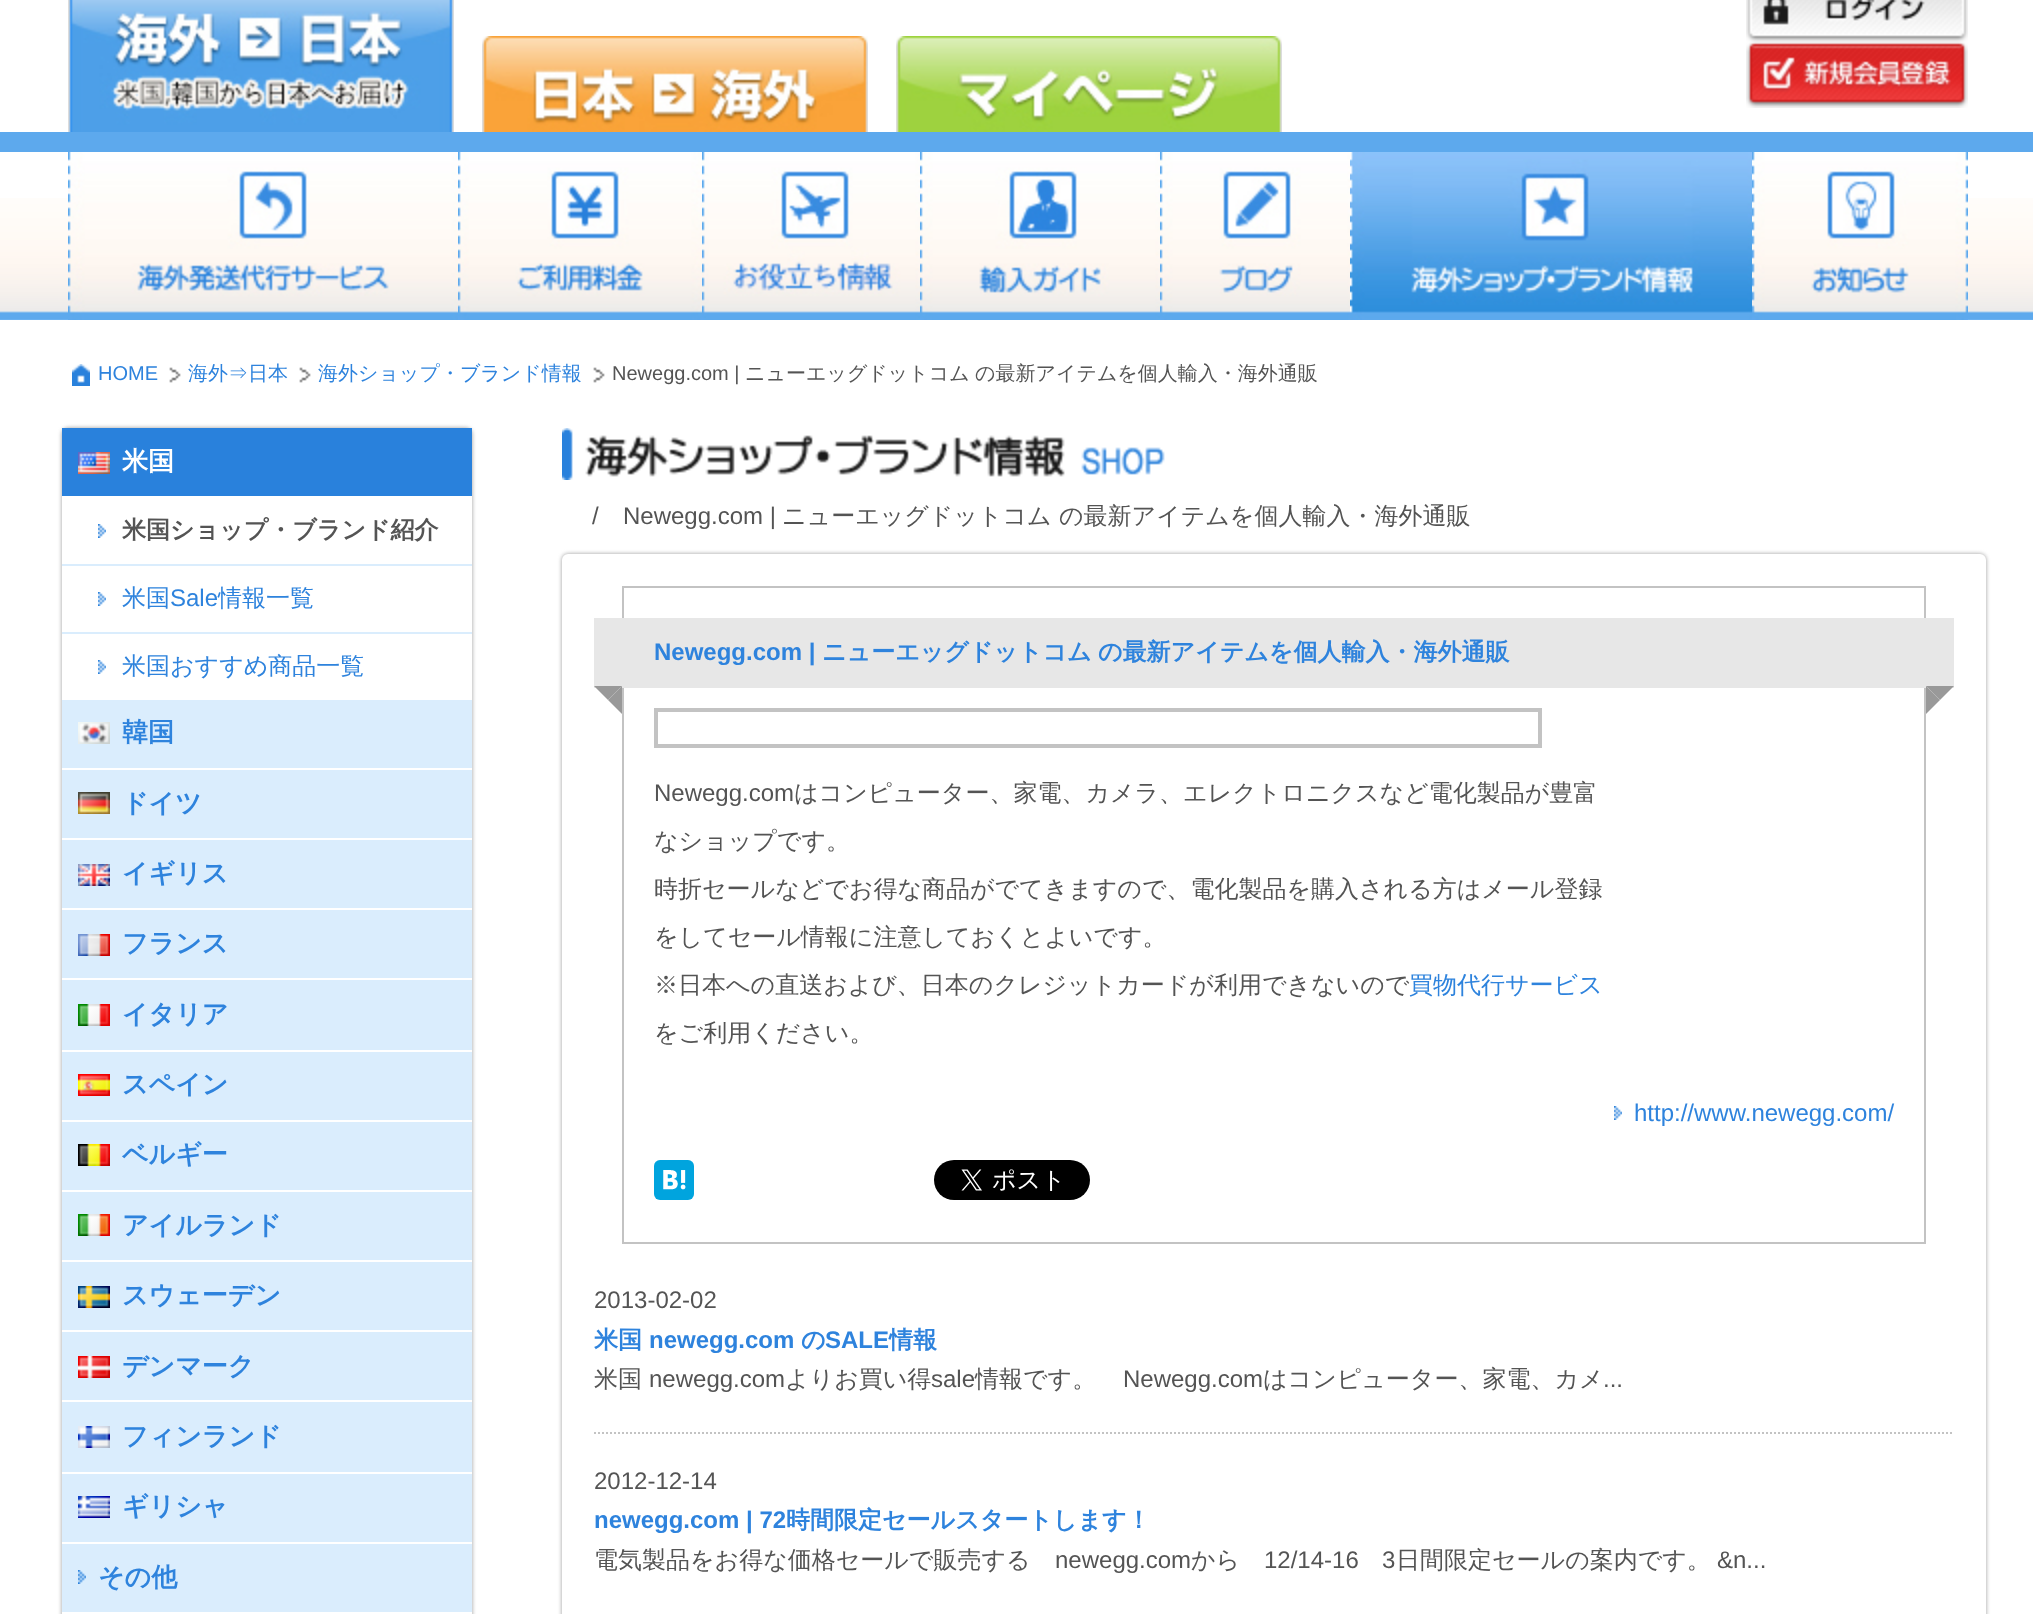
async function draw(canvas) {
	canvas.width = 2033;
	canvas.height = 1614;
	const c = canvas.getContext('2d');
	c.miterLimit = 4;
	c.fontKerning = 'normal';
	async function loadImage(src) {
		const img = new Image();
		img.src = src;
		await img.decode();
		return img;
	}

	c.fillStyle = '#fff';
	c.fillRect(0, 0, 2033, 1614);
	c.fillStyle = '#5da9ed';
	c.fillRect(0, 132, 2033, 20);
	c.drawImage(await loadImage('img1.png'), 68, 0, 386, 132);
	c.drawImage(await loadImage('img2.png'), 482, 36, 386, 96);
	c.drawImage(await loadImage('img3.png'), 896, 36, 386, 96);
	c.drawImage(await loadImage('img4.png'), 1746, 0, 222, 42);
	c.drawImage(await loadImage('img5.png'), 1746, 42, 222, 66);
	c.drawImage(await loadImage('img6.png'), 0, 198, 2033, 122);
	c.drawImage(await loadImage('img7.png'), 68, 152, 390, 168);
	c.drawImage(await loadImage('img8.png'), 458, 152, 244, 168);
	c.drawImage(await loadImage('img9.png'), 702, 152, 218, 168);
	c.drawImage(await loadImage('img10.png'), 920, 152, 240, 168);
	c.drawImage(await loadImage('img11.png'), 1160, 152, 190, 168);
	c.drawImage(await loadImage('img12.png'), 1350, 152, 402, 168);
	c.drawImage(await loadImage('img13.png'), 1752, 152, 216, 168);
	c.drawImage(await loadImage('img14.png'), 72, 364, 18, 22);
	c.font = '20px Liberation Sans';
	c.fillStyle = '#2e83dd';
	c.fillText('HOME', 98, 380);
	c.drawImage(await loadImage('img15.png'), 169, 367, 12, 16);
	c.font = '500 20px WenQuanYi Zen Hei';
	c.fillText('海外⇒日本', 188, 380);
	c.drawImage(await loadImage('img15.png'), 299, 367, 12, 16);
	c.fillText('海外ショップ・ブランド情報', 318, 380);
	c.drawImage(await loadImage('img15.png'), 593, 367, 12, 16);
	c.font = '20px Liberation Sans';
	c.fillStyle = '#545454';
	c.fillText('Newegg.com |', 612, 380);
	c.font = '500 20px WenQuanYi Zen Hei';
	c.fillText('ニューエッグドットコム', 745, 380);
	c.fillText('の最新アイテムを個人輸入・海外通販', 975, 380);
	c.fillStyle = '#9a9a9a';
	c.filter = 'blur(2px)';
	c.beginPath();
	c.roundRect(62, 428, 410, 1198, 6);
	c.fill();
	c.filter = 'none';
	c.fillStyle = '#fff';
	c.fillRect(62, 496, 410, 204);
	c.fillStyle = '#2981dc';
	c.fillRect(62, 428, 410, 68);
	c.drawImage(await loadImage('img16.png'), 78, 452, 32, 22);
	c.font = 'bold 26px WenQuanYi Zen Hei';
	c.fillStyle = '#fff';
	c.fillText('米国', 122, 470);
	c.drawImage(await loadImage('img17.png'), 98, 524, 8, 14);
	c.fillStyle = '#daedfd';
	c.fillRect(62, 564, 410, 2);
	c.font = 'bold 24px WenQuanYi Zen Hei';
	c.fillStyle = '#545454';
	c.fillText('米国ショップ・ブランド紹介', 122, 538);
	c.drawImage(await loadImage('img17.png'), 98, 592, 8, 14);
	c.fillStyle = '#daedfd';
	c.fillRect(62, 632, 410, 2);
	c.font = '500 24px WenQuanYi Zen Hei';
	c.fillStyle = '#2e83dd';
	c.fillText('米国', 122, 606);
	c.font = '24px Liberation Sans';
	c.fillText('Sale', 170, 606);
	c.font = '500 24px WenQuanYi Zen Hei';
	c.fillText('情報一覧', 218, 606);
	c.drawImage(await loadImage('img17.png'), 98, 660, 8, 14);
	c.fillText('米国おすすめ商品一覧', 122, 674);
	c.fillStyle = '#daedfd';
	c.fillRect(62, 700, 410, 68);
	c.drawImage(await loadImage('img18.png'), 78, 722, 32, 22);
	c.fillStyle = '#fff';
	c.fillRect(62, 768, 410, 2);
	c.font = 'bold 26px WenQuanYi Zen Hei';
	c.fillStyle = '#2e83dd';
	c.fillText('韓国', 122, 741);
	c.fillStyle = '#daedfd';
	c.fillRect(62, 770, 410, 68);
	c.drawImage(await loadImage('img19.png'), 78, 792, 32, 22);
	c.fillStyle = '#fff';
	c.fillRect(62, 838, 410, 2);
	c.fillStyle = '#2e83dd';
	c.fillText('ドイツ', 122, 812);
	c.fillStyle = '#daedfd';
	c.fillRect(62, 840, 410, 68);
	c.drawImage(await loadImage('img20.png'), 78, 864, 32, 22);
	c.fillStyle = '#fff';
	c.fillRect(62, 908, 410, 2);
	c.fillStyle = '#2e83dd';
	c.fillText('イギリス', 122, 882);
	c.fillStyle = '#daedfd';
	c.fillRect(62, 910, 410, 68);
	c.drawImage(await loadImage('img21.png'), 78, 934, 32, 22);
	c.fillStyle = '#fff';
	c.fillRect(62, 978, 410, 2);
	c.fillStyle = '#2e83dd';
	c.fillText('フランス', 122, 952);
	c.fillStyle = '#daedfd';
	c.fillRect(62, 980, 410, 70);
	c.drawImage(await loadImage('img22.png'), 78, 1004, 32, 22);
	c.fillStyle = '#fff';
	c.fillRect(62, 1050, 410, 2);
	c.fillStyle = '#2e83dd';
	c.fillText('イタリア', 122, 1023);
	c.fillStyle = '#daedfd';
	c.fillRect(62, 1052, 410, 68);
	c.drawImage(await loadImage('img23.png'), 78, 1074, 32, 22);
	c.fillStyle = '#fff';
	c.fillRect(62, 1120, 410, 2);
	c.fillStyle = '#2e83dd';
	c.fillText('スペイン', 122, 1093);
	c.fillStyle = '#daedfd';
	c.fillRect(62, 1122, 410, 68);
	c.drawImage(await loadImage('img24.png'), 78, 1144, 32, 22);
	c.fillStyle = '#fff';
	c.fillRect(62, 1190, 410, 2);
	c.fillStyle = '#2e83dd';
	c.fillText('ベルギー', 122, 1163);
	c.fillStyle = '#daedfd';
	c.fillRect(62, 1192, 410, 68);
	c.drawImage(await loadImage('img25.png'), 78, 1214, 32, 22);
	c.fillStyle = '#fff';
	c.fillRect(62, 1260, 410, 2);
	c.fillStyle = '#2e83dd';
	c.fillText('アイルランド', 122, 1234);
	c.fillStyle = '#daedfd';
	c.fillRect(62, 1262, 410, 68);
	c.drawImage(await loadImage('img26.png'), 78, 1286, 32, 22);
	c.fillStyle = '#fff';
	c.fillRect(62, 1330, 410, 2);
	c.fillStyle = '#2e83dd';
	c.fillText('スウェーデン', 122, 1304);
	c.fillStyle = '#daedfd';
	c.fillRect(62, 1332, 410, 68);
	c.drawImage(await loadImage('img27.png'), 78, 1356, 32, 22);
	c.fillStyle = '#fff';
	c.fillRect(62, 1400, 410, 2);
	c.fillStyle = '#2e83dd';
	c.fillText('デンマーク', 122, 1375);
	c.fillStyle = '#daedfd';
	c.fillRect(62, 1402, 410, 70);
	c.drawImage(await loadImage('img28.png'), 78, 1426, 32, 22);
	c.fillStyle = '#fff';
	c.fillRect(62, 1472, 410, 2);
	c.fillStyle = '#2e83dd';
	c.fillText('フィンランド', 122, 1445);
	c.fillStyle = '#daedfd';
	c.fillRect(62, 1474, 410, 68);
	c.drawImage(await loadImage('img29.png'), 78, 1496, 32, 22);
	c.fillStyle = '#fff';
	c.fillRect(62, 1542, 410, 2);
	c.fillStyle = '#2e83dd';
	c.fillText('ギリシャ', 122, 1515);
	c.fillStyle = '#daedfd';
	c.fillRect(62, 1544, 410, 68);
	c.drawImage(await loadImage('img30.png'), 78, 1570, 8, 14);
	c.fillStyle = '#fff';
	c.fillRect(62, 1612, 410, 2);
	c.fillStyle = '#2e83dd';
	c.fillText('その他', 98, 1586);
	c.drawImage(await loadImage('img31.png'), 562, 428, 603, 52);
	c.font = '24px Liberation Sans';
	c.fillStyle = '#545454';
	c.fillText('/', 592, 524);
	c.fillText('Newegg.com |', 623, 524);
	c.font = '500 24px WenQuanYi Zen Hei';
	c.fillText('ニューエッグドットコム', 782, 524);
	c.fillText('の最新アイテムを個人輸入・海外通販', 1059, 524);
	c.fillStyle = '#9a9a9a';
	c.filter = 'blur(2px)';
	c.beginPath();
	c.roundRect(562, 554, 1424, 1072, 6);
	c.fill();
	c.filter = 'none';
	c.fillStyle = '#fff';
	c.beginPath();
	c.roundRect(563, 555, 1422, 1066, 5);
	c.fill();
	c.strokeStyle = '#fff';
	c.lineWidth = 2;
	c.stroke();
	c.strokeStyle = '#c3c3c3';
	c.strokeRect(623, 587, 1302, 656);
	c.fillStyle = '#e7e7e7';
	c.fillRect(594, 618, 1360, 70);
	c.font = 'bold 24px Liberation Sans';
	c.fillStyle = '#2e83dd';
	c.fillText('Newegg.com |', 654, 660);
	c.font = 'bold 24px WenQuanYi Zen Hei';
	c.fillText('ニューエッグドットコム', 822, 660);
	c.fillText('の最新アイテムを個人輸入・海外通販', 1098, 660);
	c.fillStyle = '#999';
	c.beginPath();
	c.moveTo(594, 686);
	c.lineTo(622, 686);
	c.lineTo(608, 700);
	c.closePath();
	c.fill();
	c.beginPath();
	c.moveTo(622, 686);
	c.lineTo(622, 714);
	c.lineTo(608, 700);
	c.closePath();
	c.fill();
	c.beginPath();
	c.moveTo(1926, 686);
	c.lineTo(1954, 686);
	c.lineTo(1940, 700);
	c.closePath();
	c.fill();
	c.beginPath();
	c.moveTo(1926, 714);
	c.lineTo(1926, 686);
	c.lineTo(1940, 700);
	c.closePath();
	c.fill();
	c.lineWidth = 4;
	c.strokeRect(656, 710, 884, 36);
	c.font = '24px Liberation Sans';
	c.fillStyle = '#545454';
	c.fillText('Newegg.com', 654, 801);
	c.font = '500 24px WenQuanYi Zen Hei';
	for (const [text, x, y] of [
		['はコンピューター、家電、カメラ、エレクトロニクスなど電化製品が豊富', 794, 801],
		['なショップです。', 654, 849],
		['時折セールなどでお得な商品がでてきますので、電化製品を購入される方はメール登録', 654, 897],
		['をしてセール情報に注意しておくとよいです。', 654, 945],
		['※日本への直送および、日本のクレジットカードが利用できないので', 654, 993],
	]) {
		c.fillText(text, x, y);
	}
	c.fillStyle = '#2e83dd';
	c.fillText('買物代行サービス', 1409, 993);
	c.fillStyle = '#545454';
	c.fillText('をご利用ください。', 654, 1041);
	c.drawImage(await loadImage('img32.png'), 1614, 1106, 8, 14);
	c.font = '24px Liberation Sans';
	c.fillStyle = '#2e83dd';
	c.fillText('http://www.newegg.com/', 1634, 1121);
	c.drawImage(await loadImage('img33.png'), 654, 1160, 40, 40);
	c.drawImage(await loadImage('img34.png'), 934, 1160, 156, 40);
	c.beginPath();
	c.moveTo(594, 1433);
	c.lineTo(1954, 1433);
	c.lineWidth = 2;
	c.setLineDash([2, 2]);
	c.stroke();
	c.fillStyle = '#545454';
	c.fillText('2013-02-02', 594, 1308);
	c.font = 'bold 24px WenQuanYi Zen Hei';
	c.fillStyle = '#2e83dd';
	c.fillText('米国', 594, 1348);
	c.font = 'bold 24px Liberation Sans';
	c.fillText('newegg.com', 649, 1348);
	c.font = 'bold 24px WenQuanYi Zen Hei';
	c.fillText('の', 801, 1348);
	c.font = 'bold 24px Liberation Sans';
	c.fillText('SALE', 825, 1348);
	c.font = 'bold 24px WenQuanYi Zen Hei';
	c.fillText('情報', 889, 1348);
	c.font = '500 24px WenQuanYi Zen Hei';
	c.fillStyle = '#545454';
	c.fillText('米国', 594, 1387);
	c.font = '24px Liberation Sans';
	c.fillText('newegg.com', 649, 1387);
	c.font = '500 24px WenQuanYi Zen Hei';
	c.fillText('よりお買い得', 785, 1387);
	c.font = '24px Liberation Sans';
	c.fillText('sale', 931, 1387);
	c.font = '500 24px WenQuanYi Zen Hei';
	c.fillText('情報です。', 975, 1387);
	c.font = '24px Liberation Sans';
	c.fillText('Newegg.com', 1123, 1387);
	c.font = '500 24px WenQuanYi Zen Hei';
	c.fillText('はコンピューター、家電、カメ', 1263, 1387);
	c.font = '24px Liberation Sans';
	c.fillText('...', 1603, 1387);
	c.fillText('2012-12-14', 594, 1489);
	c.font = 'bold 24px Liberation Sans';
	c.fillStyle = '#2e83dd';
	c.fillText('newegg.com | 72', 594, 1528);
	c.font = 'bold 24px WenQuanYi Zen Hei';
	c.fillText('時間限定セールスタートします！', 786, 1528);
	c.font = '500 24px WenQuanYi Zen Hei';
	c.fillStyle = '#545454';
	c.fillText('電気製品をお得な価格セールで販売する', 594, 1568);
	c.font = '24px Liberation Sans';
	c.fillText('newegg.com', 1055, 1568);
	c.font = '500 24px WenQuanYi Zen Hei';
	c.fillText('から', 1191, 1568);
	c.font = '24px Liberation Sans';
	c.fillText('12/14-16', 1264, 1568);
	c.fillText('3', 1382, 1568);
	c.font = '500 24px WenQuanYi Zen Hei';
	c.fillText('日間限定セールの案内です。', 1396, 1568);
	c.font = '24px Liberation Sans';
	c.fillText('&n...', 1717, 1568);
}

draw(document.querySelector('canvas'));
